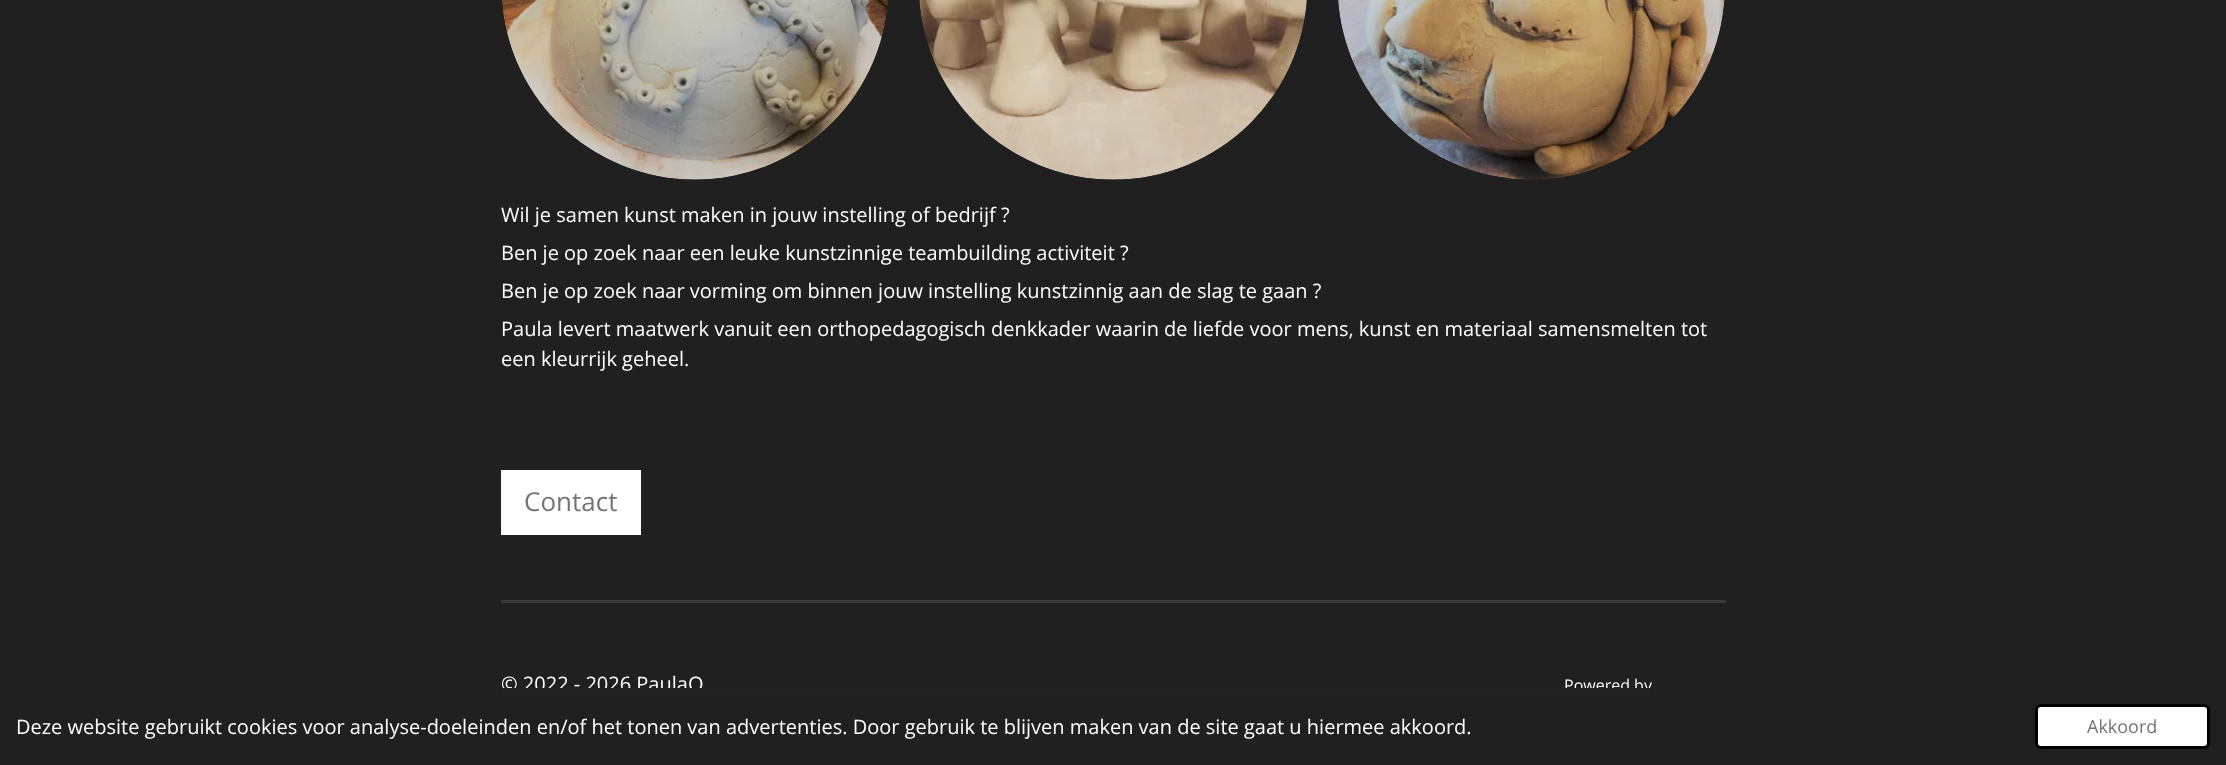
async function draw(canvas) {
	canvas.width = 2226;
	canvas.height = 765;
	const c = canvas.getContext('2d');
	c.miterLimit = 4;
	c.fontKerning = 'normal';
	async function loadImage(src) {
		const img = new Image();
		img.src = src;
		await img.decode();
		return img;
	}

	c.fillStyle = '#202020';
	c.fillRect(0, 0, 2226, 765);
	c.drawImage(await loadImage('img1.png'), 502, 0, 386, 180);
	c.drawImage(await loadImage('img2.png'), 919, 0, 388, 180);
	c.drawImage(await loadImage('img3.png'), 1338, 0, 387, 180);
	c.font = '20px Open Sans';
	c.fillStyle = '#fff';
	for (const [text, x, y] of [
		['Wil je samen kunst maken in jouw instelling of bedrijf ?', 501, 222],
		['Ben je op zoek naar een leuke kunstzinnige teambuilding activiteit ?', 501, 260],
		['Ben je op zoek naar vorming om binnen jouw instelling kunstzinnig aan de slag te gaan ?', 501, 298],
		['Paula levert maatwerk vanuit een orthopedagogisch denkkader waarin de liefde voor mens, kunst en materiaal samensmelten tot', 501, 336],
		['een kleurrijk geheel.', 501, 366],
	]) {
		c.fillText(text, x, y);
	}
	c.fillRect(501, 470, 140, 65);
	c.font = '26px Open Sans';
	c.fillStyle = '#737373';
	c.fillText('Contact', 524, 511);
	c.fillStyle = '#3a3a3a';
	c.fillRect(501, 600, 1225, 3);
	c.font = '20px Open Sans';
	c.fillStyle = '#fff';
	c.fillText('© 2022 - 2026 PaulaQ', 501, 691);
	c.font = '16px Open Sans';
	c.fillText('Powered by', 1564, 691);
	c.fillStyle = '#222';
	c.fillRect(502, 688, 1148, 7);
	c.font = '20px Open Sans';
	c.fillStyle = '#fff';
	c.fillText('Deze website gebruikt cookies voor analyse-doeleinden en/of het tonen van advertenties. Door gebruik te blijven maken van de site gaat u hiermee akkoord.', 16, 734);
	c.beginPath();
	c.roundRect(2036.5, 705.5, 172, 42, 4.5);
	c.fill();
	c.strokeStyle = '#000';
	c.lineWidth = 3;
	c.stroke();
	c.font = '18px Open Sans';
	c.fillStyle = '#737373';
	c.fillText('Akkoord', 2087, 733);
}

draw(document.querySelector('canvas'));
